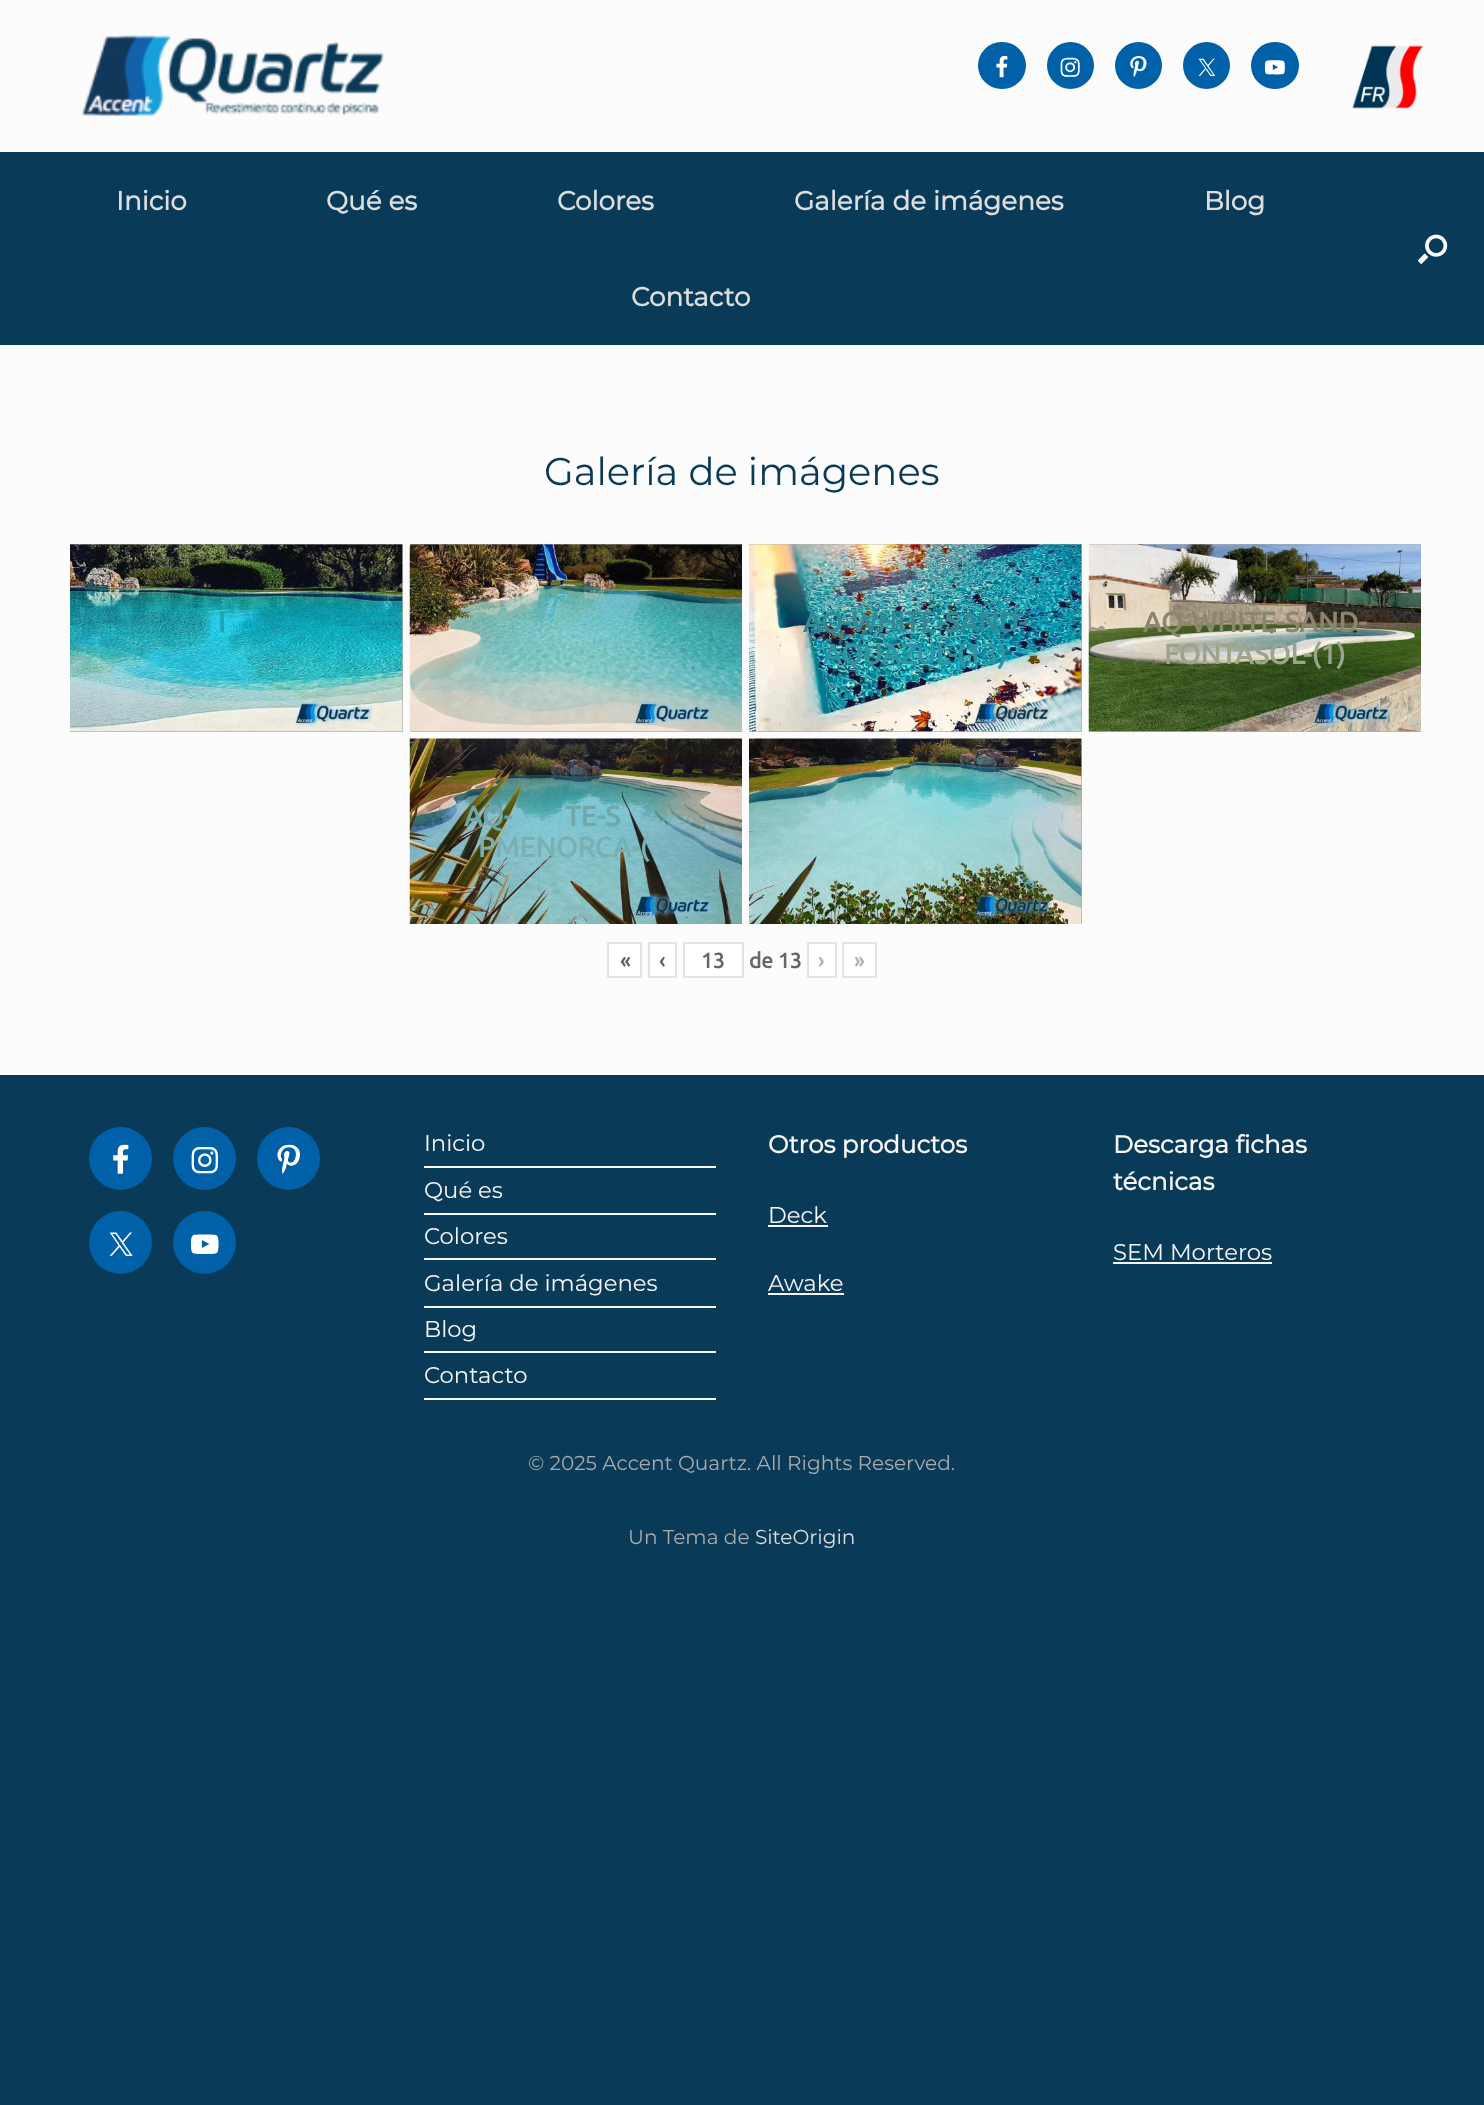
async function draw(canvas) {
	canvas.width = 1484;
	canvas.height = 2105;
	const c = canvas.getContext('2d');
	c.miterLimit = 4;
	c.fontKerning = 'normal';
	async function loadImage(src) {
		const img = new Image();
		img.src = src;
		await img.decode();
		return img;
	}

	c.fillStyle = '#093b59';
	c.fillRect(0, 0, 1484, 2105);
	c.fillStyle = '#fcfcfc';
	c.fillRect(0, 0, 1484, 152);
	c.drawImage(await loadImage('img1.png'), 82, 35, 302, 81);
	c.fillStyle = '#0060a8';
	c.beginPath();
	c.roundRect(978, 42, 48, 47, 23.5);
	c.fill();
	c.drawImage(await loadImage('img2.png'), 996, 56, 12, 22);
	c.beginPath();
	c.arc(1070.5, 65.5, 23.5, 0, 2 * Math.PI);
	c.fill();
	c.drawImage(await loadImage('img3.png'), 1060, 57, 20, 20);
	c.beginPath();
	c.arc(1138.5, 65.5, 23.5, 0, 2 * Math.PI);
	c.fill();
	c.drawImage(await loadImage('img4.png'), 1130, 56, 17, 22);
	c.beginPath();
	c.arc(1206.5, 65.5, 23.5, 0, 2 * Math.PI);
	c.fill();
	c.drawImage(await loadImage('img5.png'), 1198, 58, 18, 18);
	c.beginPath();
	c.roundRect(1251, 42, 48, 47, 23.5);
	c.fill();
	c.drawImage(await loadImage('img6.png'), 1264, 60, 21, 15);
	c.drawImage(await loadImage('img7.png'), 1352, 45, 71, 64);
	c.font = 'bold 26.25px Montserrat';
	c.fillStyle = '#ddd';
	for (const [text, x, y] of [
		['Inicio', 116, 210],
		['Qué es', 326, 210],
		['Colores', 557, 210],
		['Galería de imágenes', 794, 210],
		['Blog', 1204, 210],
		['Contacto', 631, 306],
	]) {
		c.fillText(text, x, y);
	}
	c.drawImage(await loadImage('img8.png'), 1417, 234, 31, 31);
	c.fillStyle = '#fcfcfc';
	c.fillRect(0, 345, 1484, 730);
	c.font = '100 38.5px Montserrat';
	c.fillStyle = '#093b59';
	c.fillText('Galería de imágenes', 544, 485);
	c.fillStyle = '#b0b0b0';
	c.fillRect(70, 544, 333, 188);
	c.drawImage(await loadImage('img9.png'), 70, 544, 333, 188);
	c.font = 'bold 28px Ubuntu';
	c.fillStyle = '#19a4b5';
	c.fillText('I', 218, 632);
	c.fillStyle = '#b0b0b0';
	c.fillRect(410, 544, 332, 188);
	c.drawImage(await loadImage('img10.png'), 409, 544, 333, 188);
	c.fillStyle = '#6dbcbb';
	c.fillText('-', 679, 632);
	c.fillStyle = '#b0b0b0';
	c.fillRect(749, 544, 333, 188);
	c.drawImage(await loadImage('img11.png'), 749, 544, 333, 188);
	c.fillStyle = '#338996';
	c.fillText('AQ-WHITE-SAND-', 803, 632);
	c.fillStyle = '#2e94a2';
	c.fillText('AQUAZUL-(13)', 823, 664);
	c.fillStyle = '#b0b0b0';
	c.fillRect(1089, 544, 332, 188);
	c.drawImage(await loadImage('img12.png'), 1088, 544, 333, 188);
	c.fillStyle = '#8a876d';
	c.fillText('AQ-WHITE-SAND-', 1143, 632);
	c.fillStyle = '#9ba48c';
	c.fillText('FONTASOL-(1)', 1164, 664);
	c.drawImage(await loadImage('img13.png'), 409, 738, 333, 186);
	c.fillStyle = '#70a8a8';
	c.fillText('AQ-', 464, 826);
	c.fillText('TE-S', 565, 826);
	c.fillStyle = '#7ab0b4';
	c.fillText('PMENORCA-(', 478, 857);
	c.fillStyle = '#b0b0b0';
	c.fillRect(1081, 739, 1, 185);
	c.drawImage(await loadImage('img14.png'), 749, 738, 333, 186);
	c.fillStyle = '#fff';
	c.beginPath();
	c.rect(608, 943, 33, 34);
	c.fill();
	c.strokeStyle = '#e3e3e3';
	c.lineWidth = 2;
	c.stroke();
	c.font = 'bold 21px Ubuntu';
	c.fillStyle = '#666';
	c.fillText('«', 620, 968);
	c.fillStyle = '#fff';
	c.beginPath();
	c.rect(649, 943, 27, 34);
	c.fill();
	c.stroke();
	c.fillStyle = '#666';
	c.fillText('‹', 659, 968);
	c.fillStyle = '#fff';
	c.beginPath();
	c.rect(684, 943, 59, 34);
	c.fill();
	c.stroke();
	c.fillStyle = '#666';
	c.fillText('13', 701, 968);
	c.fillText('de 13', 749, 968);
	c.fillStyle = '#fff';
	c.beginPath();
	c.rect(808, 943, 28, 34);
	c.fill();
	c.stroke();
	c.fillStyle = '#b3b3b3';
	c.fillText('›', 818, 968);
	c.fillStyle = '#fff';
	c.beginPath();
	c.rect(843, 943, 33, 34);
	c.fill();
	c.stroke();
	c.fillStyle = '#b3b3b3';
	c.fillText('»', 854, 968);
	c.fillStyle = '#0060a8';
	c.beginPath();
	c.arc(120.5, 1158.5, 31.5, 0, 2 * Math.PI);
	c.fill();
	c.drawImage(await loadImage('img15.png'), 113, 1144, 16, 30);
	c.beginPath();
	c.arc(204.5, 1158.5, 31.5, 0, 2 * Math.PI);
	c.fill();
	c.drawImage(await loadImage('img16.png'), 191, 1147, 27, 27);
	c.beginPath();
	c.arc(288.5, 1158.5, 31.5, 0, 2 * Math.PI);
	c.fill();
	c.drawImage(await loadImage('img17.png'), 277, 1144, 23, 30);
	c.beginPath();
	c.arc(120.5, 1242.5, 31.5, 0, 2 * Math.PI);
	c.fill();
	c.drawImage(await loadImage('img18.png'), 109, 1232, 24, 24);
	c.beginPath();
	c.arc(204.5, 1242.5, 31.5, 0, 2 * Math.PI);
	c.fill();
	c.drawImage(await loadImage('img19.png'), 190, 1234, 29, 20);
	c.fillStyle = '#f9f9f9';
	c.fillRect(424, 1166, 292, 2);
	c.font = '100 22.75px Montserrat';
	c.fillStyle = '#f7f7f7';
	c.fillText('Inicio', 424, 1151);
	c.fillStyle = '#f9f9f9';
	c.fillRect(424, 1213, 292, 2);
	c.fillStyle = '#f7f7f7';
	c.fillText('Qué es', 424, 1198);
	c.fillStyle = '#f9f9f9';
	c.fillRect(424, 1258, 292, 2);
	c.fillStyle = '#f7f7f7';
	c.fillText('Colores', 424, 1244);
	c.fillStyle = '#f9f9f9';
	c.fillRect(424, 1306, 292, 2);
	c.fillStyle = '#f7f7f7';
	c.fillText('Galería de imágenes', 424, 1291);
	c.fillStyle = '#f9f9f9';
	c.fillRect(424, 1351, 292, 2);
	c.fillStyle = '#f7f7f7';
	c.fillText('Blog', 424, 1337);
	c.fillStyle = '#f9f9f9';
	c.fillRect(424, 1398, 292, 2);
	c.fillStyle = '#f7f7f7';
	c.fillText('Contacto', 424, 1383);
	c.font = 'bold 24.5px Montserrat';
	c.fillText('Otros productos', 768, 1153);
	c.font = '100 22.75px Montserrat';
	c.fillText('Deck', 768, 1223);
	c.fillRect(768, 1225, 60, 2);
	c.fillText('Awake', 768, 1291);
	c.fillRect(768, 1293, 76, 2);
	c.font = 'bold 24.5px Montserrat';
	c.fillText('Descarga fichas', 1113, 1153);
	c.fillText('técnicas', 1113, 1190);
	c.font = '100 22.75px Montserrat';
	c.fillText('SEM Morteros', 1113, 1260);
	c.fillRect(1113, 1262, 159, 2);
	c.font = '100 20.1px Montserrat';
	c.fillStyle = '#aaa';
	c.fillText('© 2025 Accent Quartz. All Rights Reserved.', 528, 1470);
	c.fillText('Un Tema de', 628, 1544);
	c.fillStyle = '#ddd';
	c.fillText('SiteOrigin', 755, 1544);
}

draw(document.querySelector('canvas'));
